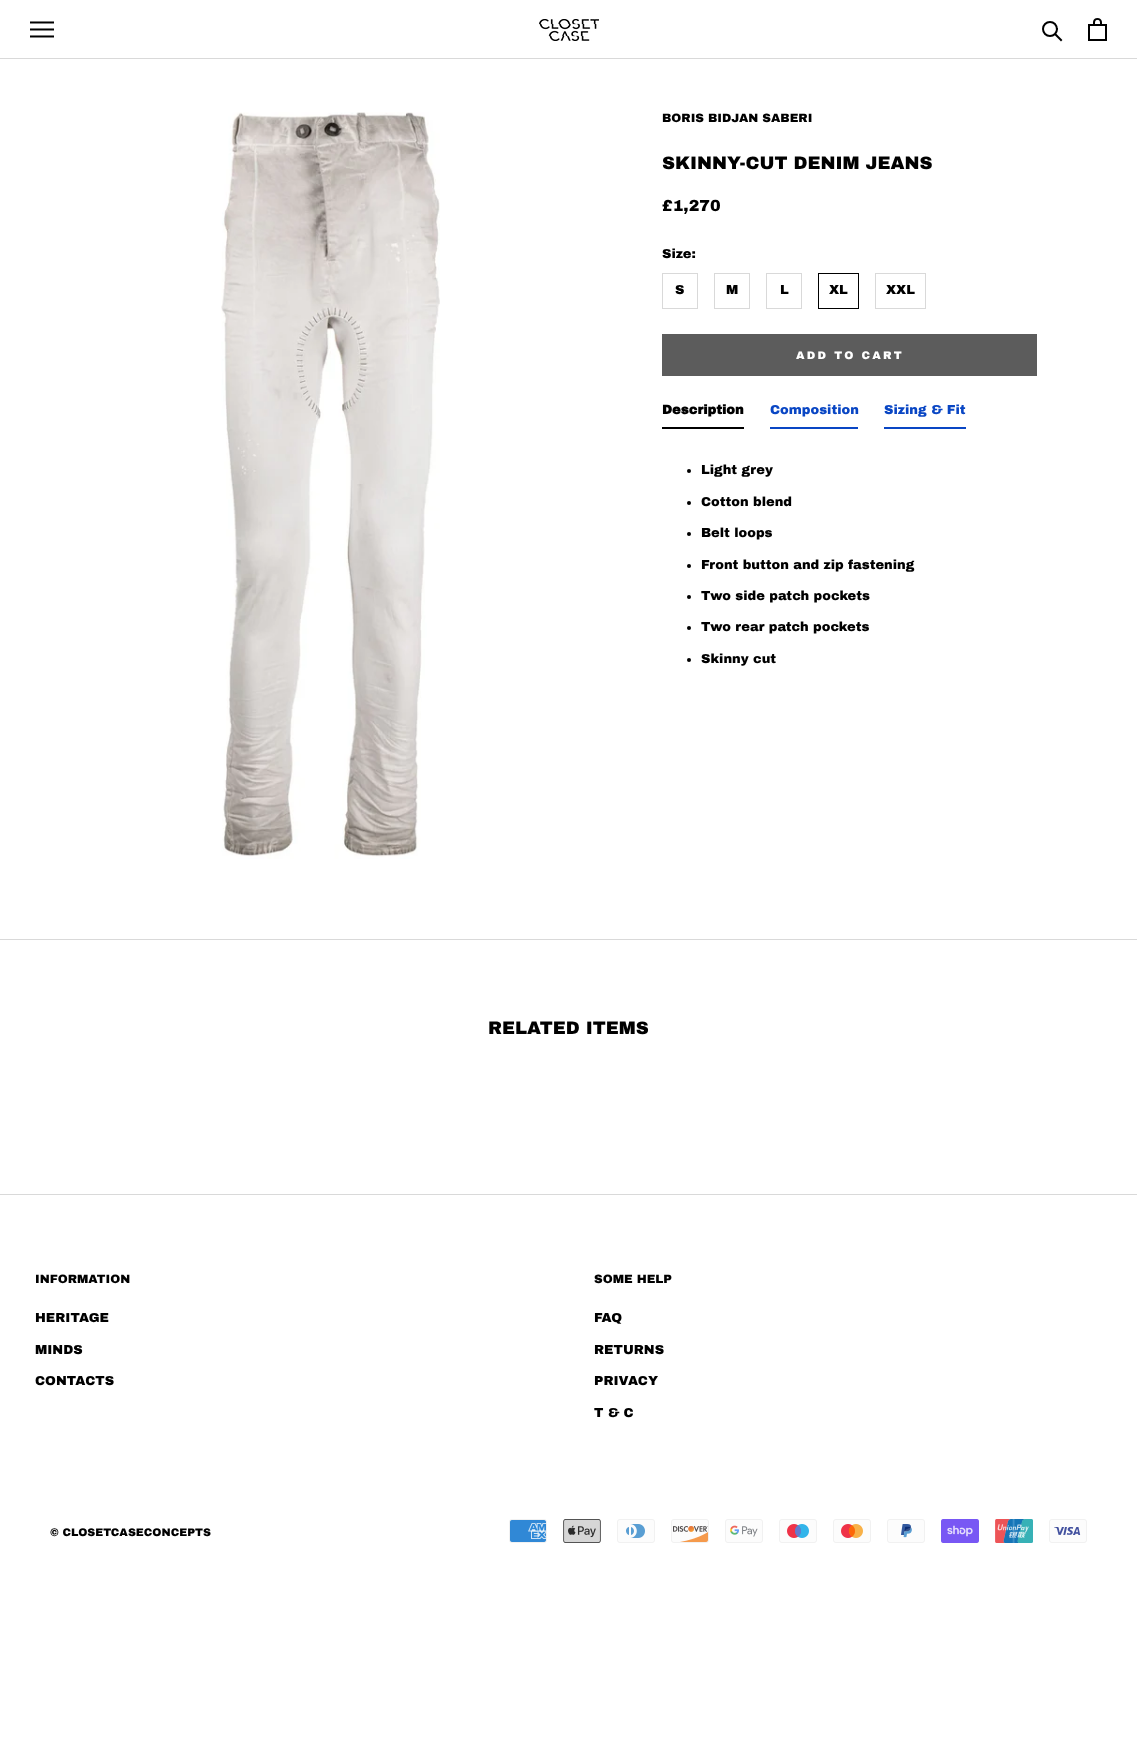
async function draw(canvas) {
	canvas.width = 1137;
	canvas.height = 1752;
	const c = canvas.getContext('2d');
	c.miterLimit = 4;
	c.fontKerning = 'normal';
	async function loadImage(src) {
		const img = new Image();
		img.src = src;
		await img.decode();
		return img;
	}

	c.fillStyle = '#fff';
	c.fillRect(0, 0, 1137, 1752);
	c.fillStyle = '#d9d9d9';
	c.fillRect(0, 58, 1137, 1);
	c.drawImage(await loadImage('img1.png'), 30, 21, 24, 17);
	c.drawImage(await loadImage('img2.png'), 539, 19, 60, 22);
	c.beginPath();
	c.moveTo(1061, 40);
	c.lineTo(1055.5, 34.5);
	c.strokeStyle = '#000';
	c.lineWidth = 2;
	c.lineCap = 'square';
	c.stroke();
	c.beginPath();
	c.arc(1050, 29, 7, 0, 2 * Math.PI);
	c.stroke();
	c.drawImage(await loadImage('img3.png'), 1088, 18, 19, 23);
	c.drawImage(await loadImage('img4.png'), 221, 112, 219, 747);
	c.font = '12px Archivo Black';
	c.fillStyle = '#000';
	c.fillText('BORIS BIDJAN SABERI', 662, 122);
	c.font = '18px Archivo Black';
	c.fillText('SKINNY-CUT DENIM JEANS', 662, 169);
	c.font = '16px Archivo Black';
	c.fillText('£1,270', 662, 211);
	c.font = '13px Archivo Black';
	c.fillText('Size:', 662, 258);
	c.strokeStyle = '#d9d9d9';
	c.lineWidth = 1;
	c.strokeRect(662.5, 273.5, 35, 35);
	c.fillText('S', 675, 294);
	c.strokeRect(714.5, 273.5, 35, 35);
	c.fillText('M', 726, 294);
	c.strokeRect(766.5, 273.5, 35, 35);
	c.fillText('L', 780, 294);
	c.strokeStyle = '#000';
	c.strokeRect(818.5, 273.5, 40, 35);
	c.fillText('XL', 829, 294);
	c.strokeStyle = '#d9d9d9';
	c.strokeRect(875.5, 273.5, 50, 35);
	c.fillText('XXL', 886, 294);
	c.strokeStyle = '#5c5c5c';
	c.strokeRect(662.5, 334.5, 374, 41);
	c.fillStyle = '#5c5c5c';
	c.fillRect(663, 335, 373, 40);
	c.letterSpacing = '2.25px';
	c.font = '11px Archivo Black';
	c.fillStyle = '#fff';
	c.fillText('ADD TO CART', 796, 359);
	c.fillStyle = '#000';
	c.fillRect(662, 427, 82, 2);
	c.letterSpacing = '0px';
	c.font = 'bold 13px Archivo Black';
	c.fillText('Description', 662, 414);
	c.fillStyle = '#0946c4';
	c.fillRect(770, 427, 88, 2);
	c.font = '13px Archivo Black';
	c.fillText('Composition', 770, 414);
	c.fillRect(884, 427, 82, 2);
	c.fillText('Sizing & Fit', 884, 414);
	c.fillStyle = '#000';
	c.beginPath();
	c.arc(689, 471, 2, 0, 2 * Math.PI);
	c.fill();
	c.fillText('Light grey', 701, 474);
	c.beginPath();
	c.arc(689, 503, 2, 0, 2 * Math.PI);
	c.fill();
	c.fillText('Cotton blend', 701, 506);
	c.beginPath();
	c.arc(689, 534, 2, 0, 2 * Math.PI);
	c.fill();
	c.fillText('Belt loops', 701, 537);
	c.beginPath();
	c.arc(689, 566, 2, 0, 2 * Math.PI);
	c.fill();
	c.fillText('Front button and zip fastening', 701, 569);
	c.beginPath();
	c.arc(689, 597, 2, 0, 2 * Math.PI);
	c.fill();
	c.fillText('Two side patch pockets', 701, 600);
	c.beginPath();
	c.arc(689, 628, 2, 0, 2 * Math.PI);
	c.fill();
	c.fillText('Two rear patch pockets', 701, 631);
	c.beginPath();
	c.arc(689, 660, 2, 0, 2 * Math.PI);
	c.fill();
	c.fillText('Skinny cut', 701, 663);
	c.fillStyle = '#d9d9d9';
	c.fillRect(0, 939, 1137, 1);
	c.font = '18px Archivo Black';
	c.fillStyle = '#000';
	c.fillText('RELATED ITEMS', 488, 1034);
	c.fillStyle = '#d9d9d9';
	c.fillRect(0, 1194, 1137, 1);
	c.font = '12px Archivo Black';
	c.fillStyle = '#000';
	c.fillText('INFORMATION', 35, 1283);
	c.font = '13px Archivo Black';
	for (const [text, x, y] of [
		['HERITAGE', 35, 1322],
		['MINDS', 35, 1354],
		['CONTACTS', 35, 1385],
	]) {
		c.fillText(text, x, y);
	}
	c.font = '12px Archivo Black';
	c.fillText('SOME HELP', 594, 1283);
	c.font = '13px Archivo Black';
	for (const [text, x, y] of [
		['FAQ', 594, 1322],
		['RETURNS', 594, 1354],
		['PRIVACY', 594, 1385],
		['T & C', 594, 1417],
	]) {
		c.fillText(text, x, y);
	}
	c.font = '11px Archivo Black';
	c.fillText('© CLOSETCASECONCEPTS', 50, 1536);
	c.drawImage(await loadImage('img5.png'), 509, 1519, 38, 24);
	c.drawImage(await loadImage('img6.png'), 563, 1519, 38, 24);
	c.drawImage(await loadImage('img7.png'), 617, 1519, 38, 24);
	c.drawImage(await loadImage('img8.png'), 671, 1519, 38, 24);
	c.drawImage(await loadImage('img9.png'), 725, 1519, 38, 24);
	c.drawImage(await loadImage('img10.png'), 779, 1519, 38, 24);
	c.drawImage(await loadImage('img11.png'), 833, 1519, 38, 24);
	c.drawImage(await loadImage('img12.png'), 887, 1519, 38, 24);
	c.drawImage(await loadImage('img13.png'), 941, 1519, 38, 24);
	c.drawImage(await loadImage('img14.png'), 995, 1519, 38, 24);
	c.drawImage(await loadImage('img15.png'), 1049, 1519, 38, 24);
}

draw(document.querySelector('canvas'));
